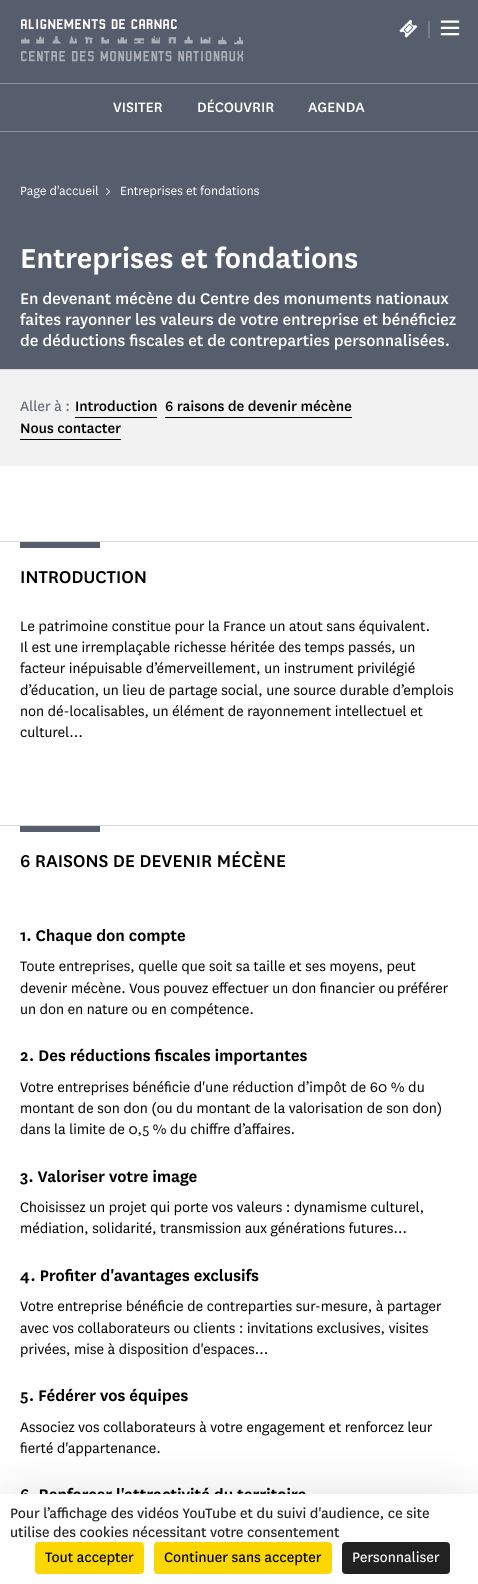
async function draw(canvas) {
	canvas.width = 478;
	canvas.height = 1584;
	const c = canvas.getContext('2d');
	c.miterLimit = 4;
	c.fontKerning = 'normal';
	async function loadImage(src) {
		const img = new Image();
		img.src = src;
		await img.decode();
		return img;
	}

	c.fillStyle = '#fff';
	c.fillRect(0, 0, 478, 1584);
	c.fillStyle = '#565d6d';
	c.fillRect(0, 0, 478, 131);
	c.font = '300 14.9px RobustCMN';
	c.fillStyle = '#fff';
	c.fillText('ALIGNEMENTS DE CARNAC', 20, 29);
	c.drawImage(await loadImage('img1.png'), 21, 35, 223, 27);
	c.drawImage(await loadImage('img2.png'), 399, 19, 19, 19);
	c.fillStyle = '#787d8a';
	c.fillRect(428, 21, 2, 17);
	c.drawImage(await loadImage('img3.png'), 440, 20, 20, 16);
	c.fillStyle = '#898e99';
	c.fillRect(0, 83, 478, 1);
	c.drawImage(await loadImage('img4.png'), 113, 102, 49, 11);
	c.drawImage(await loadImage('img5.png'), 198, 99, 76, 14);
	c.drawImage(await loadImage('img6.png'), 308, 102, 57, 11);
	c.fillStyle = '#565d6d';
	c.fillRect(0, 132, 478, 237);
	c.fillStyle = '#898e99';
	c.fillRect(0, 131, 478, 1);
	c.drawImage(await loadImage('img7.png'), 21, 185, 78, 13);
	c.drawImage(await loadImage('img8.png'), 106, 188, 4, 8);
	c.drawImage(await loadImage('img9.png'), 121, 185, 138, 13);
	c.drawImage(await loadImage('img10.png'), 22, 246, 336, 29);
	c.drawImage(await loadImage('img11.png'), 21, 291, 428, 14);
	c.drawImage(await loadImage('img12.png'), 20, 312, 436, 17);
	c.drawImage(await loadImage('img13.png'), 20, 333, 429, 17);
	c.fillStyle = '#f2f2f2';
	c.fillRect(0, 370, 478, 96);
	c.fillStyle = '#d8d8d8';
	c.fillRect(0, 369, 478, 1);
	c.drawImage(await loadImage('img14.png'), 20, 400, 49, 12);
	c.fillStyle = '#000';
	c.fillRect(75, 417, 82, 1);
	c.drawImage(await loadImage('img15.png'), 76, 400, 81, 12);
	c.fillRect(165, 417, 187, 1);
	c.drawImage(await loadImage('img16.png'), 165, 400, 187, 12);
	c.fillRect(20, 439, 101, 1);
	c.drawImage(await loadImage('img17.png'), 21, 423, 100, 11);
	c.fillStyle = '#d8d8d8';
	c.fillRect(0, 541, 478, 1);
	c.fillStyle = '#565d6d';
	c.fillRect(20, 542, 80, 6);
	c.drawImage(await loadImage('img18.png'), 21, 571, 125, 13);
	c.drawImage(await loadImage('img19.png'), 21, 620, 408, 15);
	c.drawImage(await loadImage('img20.png'), 21, 641, 394, 15);
	c.drawImage(await loadImage('img21.png'), 20, 662, 395, 15);
	c.drawImage(await loadImage('img22.png'), 20, 684, 433, 15);
	c.drawImage(await loadImage('img23.png'), 21, 705, 402, 15);
	c.drawImage(await loadImage('img24.png'), 20, 726, 62, 12);
	c.fillStyle = '#d8d8d8';
	c.fillRect(0, 825, 478, 1);
	c.fillStyle = '#565d6d';
	c.fillRect(20, 826, 80, 6);
	c.drawImage(await loadImage('img25.png'), 21, 851, 264, 17);
	c.drawImage(await loadImage('img26.png'), 20, 929, 165, 16);
	c.drawImage(await loadImage('img27.png'), 20, 960, 396, 15);
	c.drawImage(await loadImage('img28.png'), 20, 982, 428, 15);
	c.drawImage(await loadImage('img29.png'), 21, 1003, 232, 15);
	c.drawImage(await loadImage('img30.png'), 20, 1048, 287, 17);
	c.drawImage(await loadImage('img31.png'), 20, 1081, 404, 15);
	c.drawImage(await loadImage('img32.png'), 21, 1102, 420, 15);
	c.drawImage(await loadImage('img33.png'), 20, 1123, 274, 14);
	c.drawImage(await loadImage('img34.png'), 20, 1169, 177, 17);
	c.drawImage(await loadImage('img35.png'), 20, 1201, 403, 15);
	c.drawImage(await loadImage('img36.png'), 21, 1222, 385, 15);
	c.drawImage(await loadImage('img37.png'), 20, 1268, 239, 17);
	c.drawImage(await loadImage('img38.png'), 20, 1300, 422, 15);
	c.drawImage(await loadImage('img39.png'), 20, 1322, 408, 13);
	c.drawImage(await loadImage('img40.png'), 21, 1343, 246, 15);
	c.drawImage(await loadImage('img41.png'), 20, 1388, 168, 17);
	c.drawImage(await loadImage('img42.png'), 20, 1421, 413, 15);
	c.drawImage(await loadImage('img43.png'), 20, 1442, 140, 15);
	c.drawImage(await loadImage('img44.png'), 21, 1487, 285, 7);
	c.fillStyle = '#00000040';
	c.filter = 'blur(30px)';
	c.beginPath();
	c.rect(0, 1514, 478, 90);
	c.fill();
	c.filter = 'none';
	c.fillStyle = '#fff';
	c.fillRect(0, 1494, 478, 90);
	c.drawImage(await loadImage('img45.png'), 11, 1507, 418, 15);
	c.drawImage(await loadImage('img46.png'), 11, 1526, 329, 12);
	c.fillStyle = '#fbd600';
	c.beginPath();
	c.roundRect(35, 1542, 109, 32, 4);
	c.fill();
	c.drawImage(await loadImage('img47.png'), 45, 1552, 89, 14);
	c.beginPath();
	c.roundRect(154, 1542, 178, 32, 4);
	c.fill();
	c.drawImage(await loadImage('img48.png'), 164, 1551, 158, 15);
	c.fillStyle = '#222';
	c.beginPath();
	c.roundRect(342, 1542, 108, 32, 4);
	c.fill();
	c.drawImage(await loadImage('img49.png'), 353, 1551, 87, 12);
}

draw(document.querySelector('canvas'));
